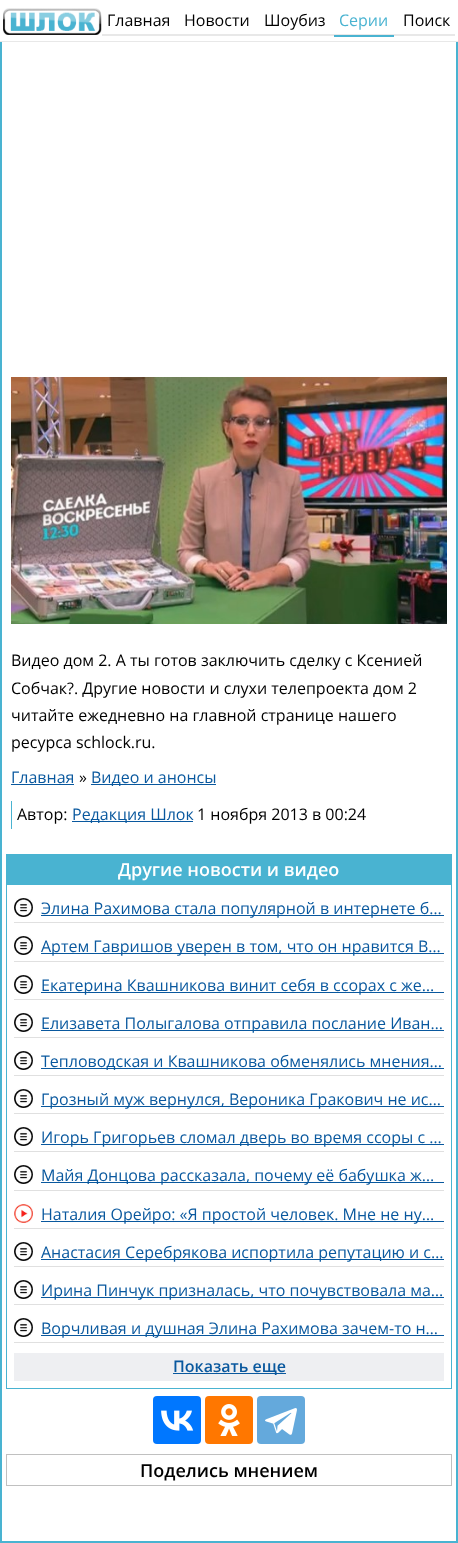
async function draw(canvas) {
	canvas.width = 458;
	canvas.height = 1543;
	const c = canvas.getContext('2d');
	c.miterLimit = 4;
	c.fontKerning = 'normal';
	async function loadImage(src) {
		const img = new Image();
		img.src = src;
		await img.decode();
		return img;
	}

	c.fillStyle = '#49b3d1';
	c.fillRect(0, 0, 458, 1543);
	c.strokeStyle = '#fff';
	c.strokeRect(2.5, -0.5, 453, 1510);
	c.fillStyle = '#fff';
	c.fillRect(0, 0, 458, 41);
	c.fillStyle = '#e8e8e8';
	c.fillRect(0, 41, 458, 1);
	c.drawImage(await loadImage('img1.png'), 3, 8, 99, 27);
	c.fillRect(102, 34, 353, 2);
	c.font = '16px Open Sans';
	c.fillStyle = '#000';
	for (const [text, x, y] of [
		['Главная', 107, 26],
		['Новости', 184, 26],
		['Шоубиз', 264, 26],
	]) {
		c.fillText(text, x, y);
	}
	c.fillStyle = '#49b3d1';
	c.fillRect(334, 35, 60, 2);
	c.fillText('Серии', 339, 26);
	c.fillStyle = '#000';
	c.fillText('Поиск', 403, 26);
	c.fillStyle = '#fff';
	c.fillRect(3, 42, 452, 1466);
	c.drawImage(await loadImage('img2.png'), 11, 377, 436, 247);
	c.fillStyle = '#000';
	for (const [text, x, y] of [
		['Видео дом 2. А ты готов заключить сделку с Ксенией', 11, 666],
		['Собчак?. Другие новости и слухи телепроекта дом 2', 11, 694],
		['читайте ежедневно на главной странице нашего', 11, 721],
		['ресурса schlock.ru.', 11, 748],
	]) {
		c.fillText(text, x, y);
	}
	c.fillStyle = '#09589e';
	c.fillText('Главная', 11, 783);
	c.fillRect(11, 784, 63, 1);
	c.fillStyle = '#000';
	c.fillText('»', 79, 783);
	c.fillStyle = '#09589e';
	c.fillRect(91, 784, 125, 1);
	c.fillText('Видео и анонсы', 91, 783);
	c.fillStyle = '#49b3d1';
	c.fillRect(11, 801, 1, 28);
	c.fillStyle = '#000';
	c.fillText('Автор:', 17, 820);
	c.fillStyle = '#09589e';
	c.fillRect(72, 821, 121, 1);
	c.fillText('Редакция Шлок', 72, 820);
	c.fillStyle = '#000';
	c.fillText('1 ноября 2013 в 00:24', 197, 820);
	c.fillStyle = '#49b3d1';
	c.fillRect(6, 854, 446, 30);
	c.font = '600 18px Open Sans';
	c.fillStyle = '#fff';
	c.fillText('Другие новости и видео', 118, 876);
	c.strokeStyle = '#49b3d1';
	c.strokeRect(6.5, 884.5, 445, 504);
	c.fillStyle = '#e0e0e0';
	c.fillRect(14, 922, 430, 1);
	c.drawImage(await loadImage('img3.png'), 14, 898, 19, 19);
	c.fillStyle = '#09589e';
	c.fillRect(41, 915, 403, 1);
	c.font = '16px Open Sans';
	c.fillText('Элина Рахимова стала популярной в интернете б…', 41, 914);
	c.fillStyle = '#e0e0e0';
	c.fillRect(14, 961, 430, 1);
	c.drawImage(await loadImage('img3.png'), 14, 936, 19, 19);
	c.fillStyle = '#09589e';
	c.fillRect(41, 953, 403, 1);
	c.fillText('Артем Гавришов уверен в том, что он нравится В…', 41, 952);
	c.fillStyle = '#e0e0e0';
	c.fillRect(14, 999, 430, 1);
	c.drawImage(await loadImage('img3.png'), 14, 975, 19, 19);
	c.fillStyle = '#09589e';
	c.fillRect(41, 992, 403, 1);
	c.fillText('Екатерина Квашникова винит себя в ссорах с же…', 41, 991);
	c.fillStyle = '#e0e0e0';
	c.fillRect(14, 1037, 430, 1);
	c.drawImage(await loadImage('img3.png'), 14, 1013, 19, 19);
	c.fillStyle = '#09589e';
	c.fillRect(41, 1030, 403, 1);
	c.fillText('Елизавета Полыгалова отправила послание Иван…', 41, 1029);
	c.fillStyle = '#e0e0e0';
	c.fillRect(14, 1075, 430, 1);
	c.drawImage(await loadImage('img3.png'), 14, 1051, 19, 19);
	c.fillStyle = '#09589e';
	c.fillRect(41, 1068, 403, 1);
	c.fillText('Тепловодская и Квашникова обменялись мнения…', 41, 1067);
	c.fillStyle = '#e0e0e0';
	c.fillRect(14, 1113, 430, 1);
	c.drawImage(await loadImage('img3.png'), 14, 1089, 19, 19);
	c.fillStyle = '#09589e';
	c.fillRect(41, 1106, 403, 1);
	c.fillText('Грозный муж вернулся, Вероника Гракович не ис…', 41, 1105);
	c.fillStyle = '#e0e0e0';
	c.fillRect(14, 1151, 430, 1);
	c.drawImage(await loadImage('img3.png'), 14, 1127, 19, 19);
	c.fillStyle = '#09589e';
	c.fillRect(41, 1144, 403, 1);
	c.fillText('Игорь Григорьев сломал дверь во время ссоры с …', 41, 1143);
	c.fillStyle = '#e0e0e0';
	c.fillRect(14, 1190, 430, 1);
	c.drawImage(await loadImage('img3.png'), 14, 1165, 19, 19);
	c.fillStyle = '#09589e';
	c.fillRect(41, 1182, 403, 1);
	c.fillText('Майя Донцова рассказала, почему её бабушка ж…', 41, 1181);
	c.fillStyle = '#e0e0e0';
	c.fillRect(14, 1228, 430, 1);
	c.drawImage(await loadImage('img4.png'), 14, 1204, 19, 19);
	c.fillStyle = '#09589e';
	c.fillRect(41, 1221, 403, 1);
	c.fillText('Наталия Орейро: «Я простой человек. Мне не ну…', 41, 1220);
	c.fillStyle = '#e0e0e0';
	c.fillRect(14, 1266, 430, 1);
	c.drawImage(await loadImage('img3.png'), 14, 1242, 19, 19);
	c.fillStyle = '#09589e';
	c.fillRect(41, 1259, 403, 1);
	c.fillText('Анастасия Серебрякова испортила репутацию и с…', 41, 1258);
	c.fillStyle = '#e0e0e0';
	c.fillRect(14, 1304, 430, 1);
	c.drawImage(await loadImage('img3.png'), 14, 1280, 19, 19);
	c.fillStyle = '#09589e';
	c.fillRect(41, 1297, 403, 1);
	c.fillText('Ирина Пинчук призналась, что почувствовала ма…', 41, 1296);
	c.fillStyle = '#e0e0e0';
	c.fillRect(14, 1342, 430, 1);
	c.drawImage(await loadImage('img3.png'), 14, 1318, 19, 19);
	c.fillStyle = '#09589e';
	c.fillRect(41, 1335, 403, 1);
	c.fillText('Ворчливая и душная Элина Рахимова зачем-то н…', 41, 1334);
	c.fillStyle = '#eeeff2';
	c.fillRect(14, 1353, 430, 28);
	c.fillStyle = '#09589e';
	c.fillRect(173, 1373, 113, 1);
	c.font = '600 16px Open Sans';
	c.fillText('Показать еще', 173, 1372);
	c.fillStyle = '#07f';
	c.beginPath();
	c.roundRect(153, 1396, 48, 48, 4);
	c.fill();
	c.drawImage(await loadImage('img5.png'), 161, 1410, 33, 21);
	c.fillStyle = '#f70';
	c.beginPath();
	c.roundRect(205, 1396, 48, 48, 4);
	c.fill();
	c.drawImage(await loadImage('img6.png'), 218, 1404, 22, 32);
	c.fillStyle = '#64a9dc';
	c.beginPath();
	c.roundRect(257, 1396, 48, 48, 4);
	c.fill();
	c.drawImage(await loadImage('img7.png'), 265, 1408, 32, 27);
	c.strokeStyle = '#c0c0c0';
	c.strokeRect(6.5, 1454.5, 445, 31);
	c.font = '600 18px Open Sans';
	c.fillStyle = '#000';
	c.fillText('Поделись мнением', 140, 1477);
	c.strokeStyle = '#fff';
	c.strokeRect(2.5, 1508.5, 453, 32);
	c.fillStyle = '#fff';
	c.fillRect(3, 1510, 452, 30);
}

draw(document.querySelector('canvas'));
